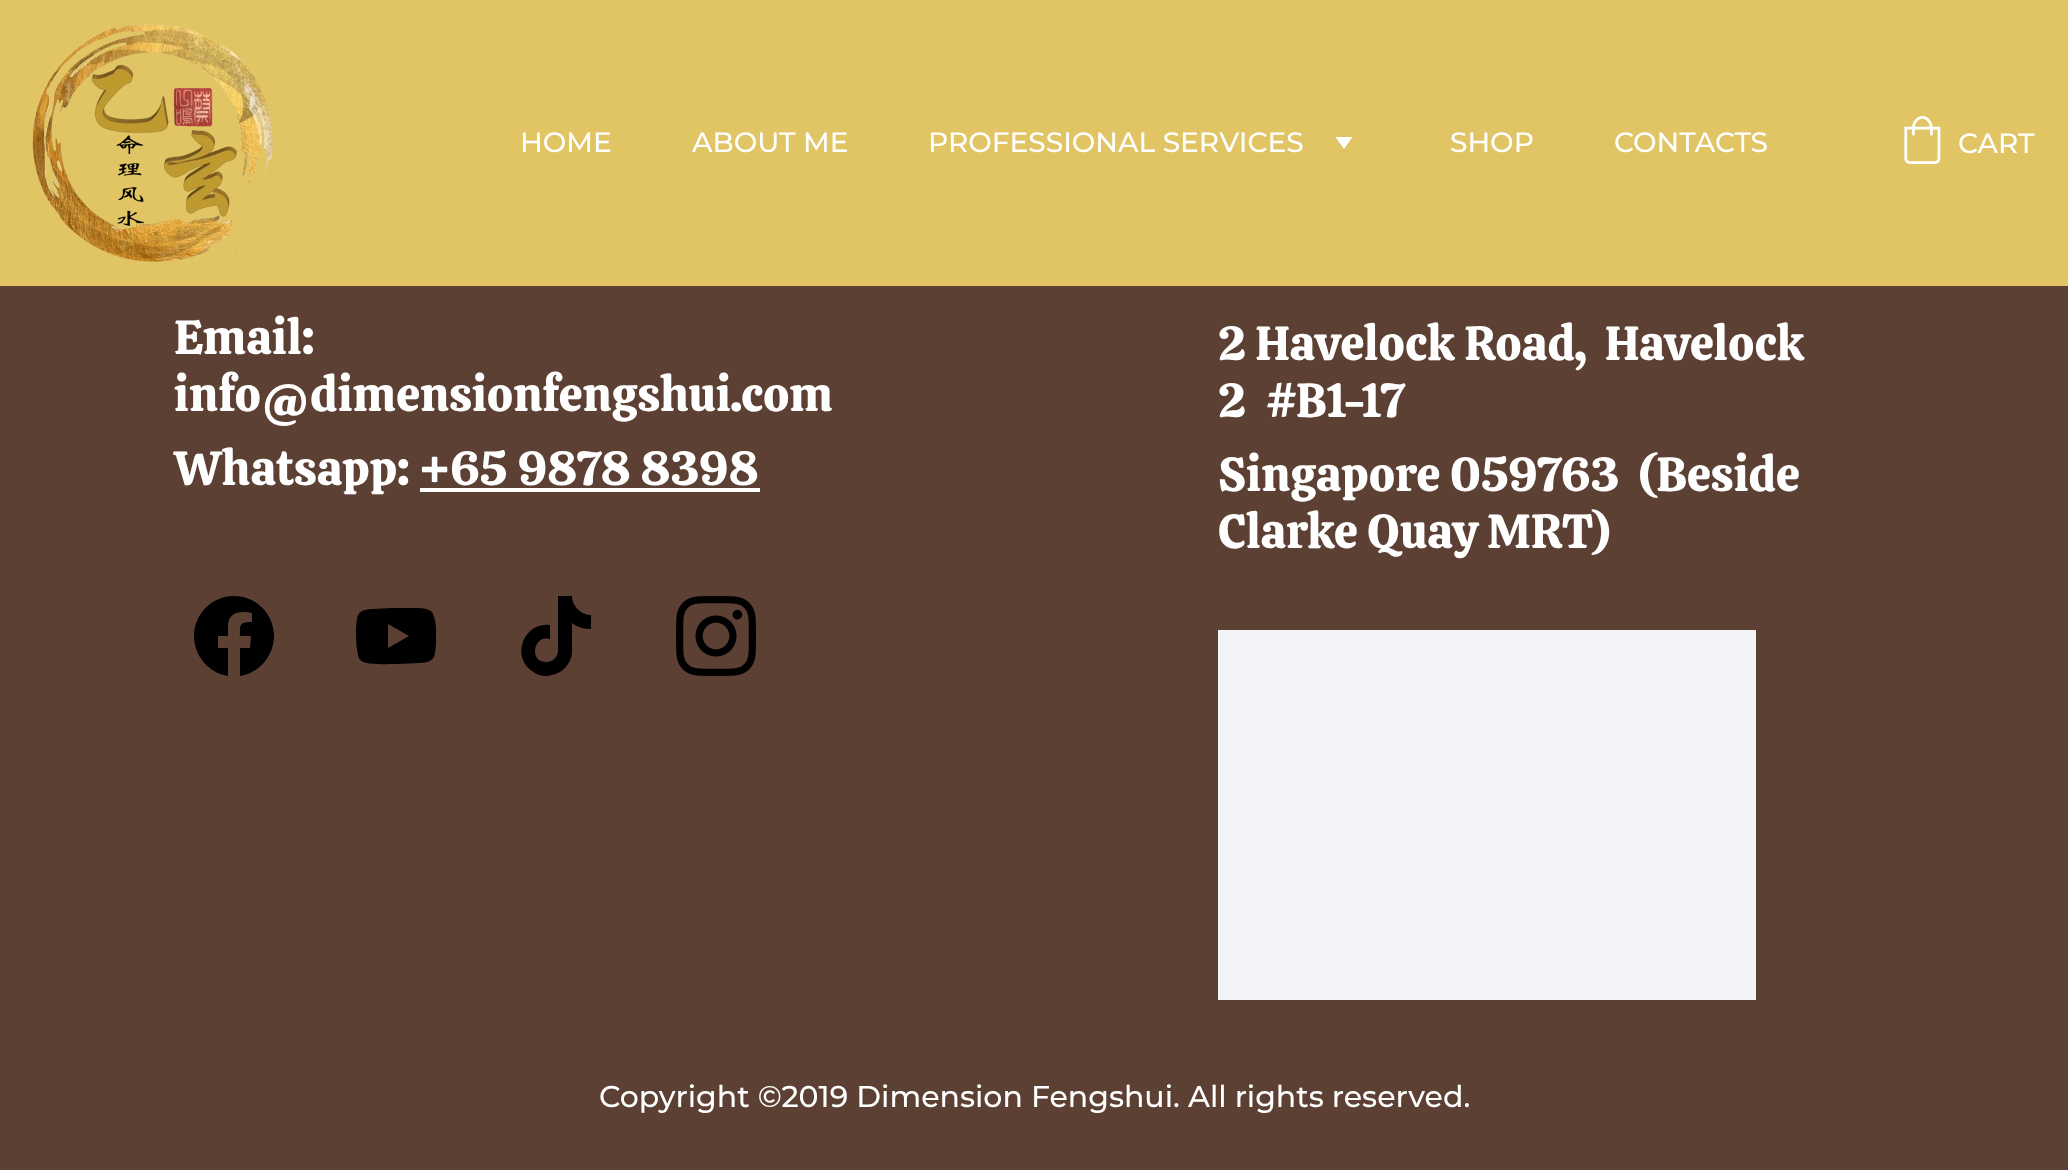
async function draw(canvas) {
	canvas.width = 2068;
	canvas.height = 1170;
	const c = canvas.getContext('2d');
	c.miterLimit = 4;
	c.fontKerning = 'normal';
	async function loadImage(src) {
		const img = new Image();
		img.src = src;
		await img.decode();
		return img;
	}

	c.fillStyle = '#5c4033';
	c.fillRect(0, 0, 2068, 1170);
	c.fillStyle = '#e1c564';
	c.fillRect(0, 0, 2068, 286);
	c.drawImage(await loadImage('img1.png'), 32, 24, 241, 240);
	c.font = '100 28px Montserrat';
	c.fillStyle = '#fff';
	for (const [text, x, y] of [
		['HOME', 520, 152],
		['ABOUT ME', 692, 152],
		['PROFESSIONAL SERVICES', 928, 152],
	]) {
		c.fillText(text, x, y);
	}
	c.beginPath();
	c.moveTo(1344, 149);
	c.lineTo(1335.5, 137);
	c.lineTo(1352.5, 137);
	c.closePath();
	c.fill();
	c.fillText('SHOP', 1450, 152);
	c.fillText('CONTACTS', 1614, 152);
	c.drawImage(await loadImage('img2.png'), 1904, 116, 37, 48);
	c.fillText('CART', 1958, 153);
	c.font = '48px Calistoga';
	for (const [text, x, y] of [
		['Email:', 174, 354],
		['info@dimensionfengshui.com', 174, 411],
		['Whatsapp: +65 9878 8398', 174, 485],
	]) {
		c.fillText(text, x, y);
	}
	c.fillRect(420, 488, 340, 4);
	for (const [text, x, y] of [
		['2 Havelock Road,  Havelock', 1218, 360],
		['2  #B1-17', 1218, 417],
		['Singapore 059763  (Beside', 1218, 491],
		['Clarke Quay MRT)', 1218, 548],
	]) {
		c.fillText(text, x, y);
	}
	c.fillStyle = '#000';
	c.beginPath();
	c.moveTo(274, 636);
	c.bezierCurveTo(274, 614, 256, 596, 234, 596);
	c.bezierCurveTo(212, 596, 194, 614, 194, 636);
	c.bezierCurveTo(194, 656, 209, 673, 228, 676);
	c.lineTo(228, 648);
	c.lineTo(218, 648);
	c.lineTo(218, 636);
	c.lineTo(228, 636);
	c.lineTo(228, 624);
	c.bezierCurveTo(230, 611, 242, 611, 252, 613);
	c.lineTo(252, 622);
	c.bezierCurveTo(239, 622, 240, 625, 240, 636);
	c.lineTo(251, 636);
	c.lineTo(250, 648);
	c.lineTo(240, 648);
	c.lineTo(240, 676);
	c.bezierCurveTo(259, 673, 274, 656, 274, 636);
	c.closePath();
	c.fill();
	c.save();
	c.beginPath();
	c.rect(356, 596, 80, 80);
	c.clip();
	c.beginPath();
	c.moveTo(434, 617);
	c.bezierCurveTo(434, 614, 431, 611, 429, 610);
	c.bezierCurveTo(424, 608, 419, 608, 415, 608);
	c.lineTo(392, 608);
	c.lineTo(372, 609);
	c.bezierCurveTo(357, 610, 357, 615, 356, 629);
	c.bezierCurveTo(356, 637, 356, 647, 358, 655);
	c.bezierCurveTo(358, 658, 361, 661, 363, 662);
	c.bezierCurveTo(370, 665, 389, 664, 397, 664);
	c.lineTo(420, 663);
	c.bezierCurveTo(435, 662, 435, 657, 436, 643);
	c.bezierCurveTo(436, 635, 437, 625, 434, 617);
	c.closePath();
	c.moveTo(388, 648);
	c.lineTo(388, 624);
	c.lineTo(409, 636);
	c.closePath();
	c.fill();
	c.restore();
	c.beginPath();
	c.moveTo(591, 629);
	c.bezierCurveTo(584, 629, 577, 627, 572, 623);
	c.lineTo(572, 654);
	c.bezierCurveTo(570, 665, 562, 673, 552, 675);
	c.bezierCurveTo(546, 677, 540, 676, 535, 673);
	c.bezierCurveTo(510, 660, 522, 622, 550, 625);
	c.lineTo(550, 639);
	c.bezierCurveTo(533, 634, 529, 662, 546, 662);
	c.bezierCurveTo(550, 662, 554, 660, 556, 657);
	c.bezierCurveTo(559, 653, 558, 647, 558, 642);
	c.lineTo(558, 596);
	c.lineTo(572, 596);
	c.bezierCurveTo(572, 606, 581, 615, 591, 615);
	c.closePath();
	c.fill();
	c.drawImage(await loadImage('img3.png'), 676, 596, 80, 80);
	c.fillStyle = '#f2f3f6';
	c.fillRect(1218, 630, 538, 370);
	c.font = '100 30px Montserrat';
	c.fillStyle = '#fff';
	c.fillText('Copyright ©2019 Dimension Fengshui. All rights reserved.', 599, 1107);
}

draw(document.querySelector('canvas'));
